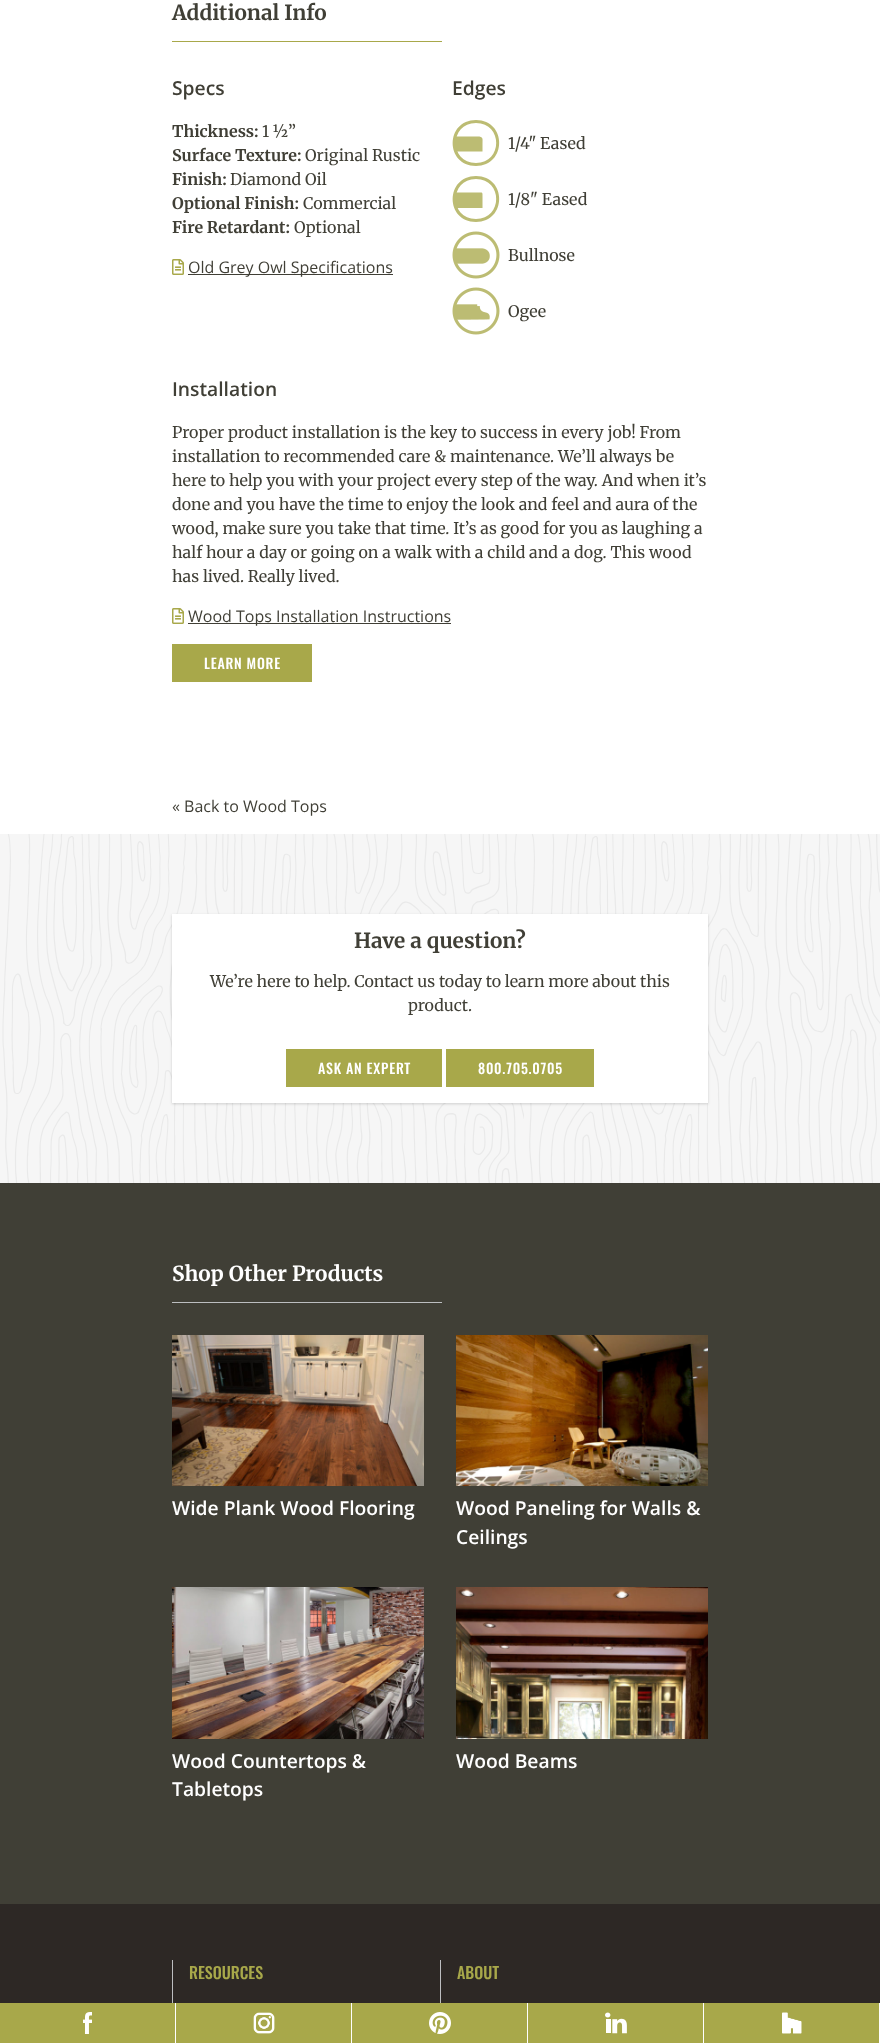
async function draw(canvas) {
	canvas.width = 880;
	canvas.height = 2043;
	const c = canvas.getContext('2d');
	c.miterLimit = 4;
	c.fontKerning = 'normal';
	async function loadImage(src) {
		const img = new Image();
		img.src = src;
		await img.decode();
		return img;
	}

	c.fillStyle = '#fff';
	c.fillRect(0, 0, 880, 2043);
	c.fillStyle = '#f7f7f7';
	c.fillRect(0, 834, 880, 349);
	c.font = 'bold 20.75px Merriweather';
	c.fillStyle = '#403f36';
	c.fillText('Additional Info', 172, 20);
	c.fillStyle = '#a8a84a';
	c.fillRect(172, 41, 270, 1);
	c.font = '600 19.25px Open Sans';
	c.fillStyle = '#403f36';
	c.fillText('Specs', 172, 95);
	c.font = 'bold 16px Merriweather';
	c.fillText('Thickness:', 172, 137);
	c.font = '16px Merriweather';
	c.fillText('1 ½”', 262, 137);
	c.font = 'bold 16px Merriweather';
	c.fillText('Surface Texture:', 172, 161);
	c.font = '16px Merriweather';
	c.fillText('Original Rustic', 305, 161);
	c.font = 'bold 16px Merriweather';
	c.fillText('Finish:', 172, 185);
	c.font = '16px Merriweather';
	c.fillText('Diamond Oil', 230, 185);
	c.font = 'bold 16px Merriweather';
	c.fillText('Optional Finish:', 172, 209);
	c.font = '16px Merriweather';
	c.fillText('Commercial', 303, 209);
	c.font = 'bold 16px Merriweather';
	c.fillText('Fire Retardant:', 172, 233);
	c.font = '16px Merriweather';
	c.fillText('Optional', 294, 233);
	c.drawImage(await loadImage('img1.png'), 172, 259, 12, 16);
	c.fillRect(188, 274, 205, 1);
	c.font = '16px Open Sans';
	c.fillText('Old Grey Owl Specifications', 188, 273);
	c.font = '600 19.25px Open Sans';
	c.fillText('Edges', 452, 95);
	c.fillStyle = '#bcbc73';
	c.beginPath();
	c.moveTo(455, 136.5);
	c.lineTo(455, 151.5);
	c.lineTo(482.5, 151.5);
	c.lineTo(482.5, 143.5);
	c.bezierCurveTo(482.5, 138.5, 483.5, 136.5, 477.5, 136.5);
	c.closePath();
	c.fill();
	c.beginPath();
	c.moveTo(476, 166);
	c.bezierCurveTo(445, 166, 445, 120, 476, 120);
	c.bezierCurveTo(507, 120, 507, 166, 476, 166);
	c.closePath();
	c.moveTo(476, 123);
	c.bezierCurveTo(449, 123, 449, 163, 476, 163);
	c.bezierCurveTo(503, 163, 503, 123, 476, 123);
	c.closePath();
	c.fill();
	c.font = '16px Merriweather';
	c.fillStyle = '#403f36';
	c.fillText('1/4" Eased', 508, 149);
	c.fillStyle = '#bcbc73';
	c.beginPath();
	c.moveTo(455, 192.5);
	c.lineTo(455, 208);
	c.lineTo(482.5, 208);
	c.lineTo(482.5, 196.5);
	c.bezierCurveTo(482.5, 192, 483, 192.5, 477.5, 192.5);
	c.closePath();
	c.fill();
	c.beginPath();
	c.moveTo(476, 222);
	c.bezierCurveTo(445, 222, 445, 176, 476, 176);
	c.bezierCurveTo(507, 176, 507, 222, 476, 222);
	c.closePath();
	c.moveTo(476, 179);
	c.bezierCurveTo(449, 179, 449, 219, 476, 219);
	c.bezierCurveTo(503, 219, 503, 179, 476, 179);
	c.closePath();
	c.fill();
	c.fillStyle = '#403f36';
	c.fillText('1/8" Eased', 508, 205);
	c.drawImage(await loadImage('img2.png'), 452, 231, 48, 48);
	c.fillText('Bullnose', 508, 261);
	c.drawImage(await loadImage('img3.png'), 452, 287, 48, 48);
	c.fillText('Ogee', 508, 317);
	c.font = '600 19.25px Open Sans';
	c.fillText('Installation', 172, 396);
	c.font = '16px Merriweather';
	for (const [text, x, y] of [
		['Proper product installation is the key to success in every job! From', 172, 438],
		['installation to recommended care & maintenance. We’ll always be', 172, 462],
		['here to help you with your project every step of the way. And when it’s', 172, 486],
		['done and you have the time to enjoy the look and feel and aura of the', 172, 510],
		['wood, make sure you take that time. It’s as good for you as laughing a', 172, 534],
		['half hour a day or going on a walk with a child and a dog. This wood', 172, 558],
		['has lived. Really lived.', 172, 582],
	]) {
		c.fillText(text, x, y);
	}
	c.drawImage(await loadImage('img1.png'), 172, 608, 12, 16);
	c.fillRect(188, 623, 263, 1);
	c.font = '16px Open Sans';
	c.fillText('Wood Tops Installation Instructions', 188, 622);
	c.fillStyle = '#a8a84a';
	c.fillRect(172, 644, 140, 38);
	c.letterSpacing = '0.75px';
	c.font = '500 14px Oswald';
	c.fillStyle = '#fff';
	c.fillText('LEARN MORE', 204, 669);
	c.letterSpacing = '0px';
	c.font = '16px Open Sans';
	c.fillStyle = '#403f36';
	c.fillText('« Back to Wood Tops', 172, 812);
	c.drawImage(await loadImage('img4.png'), 0, 834, 880, 349);
	c.fillStyle = '#0000000f';
	c.filter = 'blur(1px)';
	c.beginPath();
	c.rect(172, 915, 536, 189);
	c.fill();
	c.filter = 'none';
	c.fillStyle = '#0000001a';
	c.filter = 'blur(1.5px)';
	c.beginPath();
	c.rect(172, 915, 536, 189);
	c.fill();
	c.filter = 'none';
	c.fillStyle = '#fff';
	c.fillRect(172, 914, 536, 189);
	c.font = 'bold 20.75px Merriweather';
	c.fillStyle = '#403f36';
	c.fillText('Have a question?', 354, 948);
	c.font = '16px Merriweather';
	c.fillText('We’re here to help. Contact us today to learn more about this', 210, 987);
	c.fillText('product.', 408, 1011);
	c.fillStyle = '#a8a84a';
	c.fillRect(286, 1049, 156, 38);
	c.letterSpacing = '0.75px';
	c.font = '500 14px Oswald';
	c.fillStyle = '#fff';
	c.fillText('ASK AN EXPERT', 318, 1074);
	c.fillStyle = '#a8a84a';
	c.fillRect(446, 1049, 148, 38);
	c.fillStyle = '#fff';
	c.fillText('800.705.0705', 478, 1074);
	c.fillStyle = '#403f36';
	c.fillRect(0, 1183, 880, 721);
	c.letterSpacing = '0px';
	c.font = 'bold 20.75px Merriweather';
	c.fillStyle = '#fff';
	c.fillText('Shop Other Products', 172, 1281);
	c.fillStyle = '#bcbec0';
	c.fillRect(172, 1302, 270, 1);
	c.drawImage(await loadImage('img5.png'), 172, 1335, 252, 151);
	c.font = '600 19.25px Open Sans';
	c.fillStyle = '#fff';
	c.fillText('Wide Plank Wood Flooring', 172, 1515);
	c.drawImage(await loadImage('img6.png'), 456, 1335, 252, 151);
	c.fillText('Wood Paneling for Walls &', 456, 1515);
	c.fillText('Ceilings', 456, 1544);
	c.drawImage(await loadImage('img7.png'), 172, 1587, 252, 152);
	c.fillText('Wood Countertops &', 172, 1768);
	c.fillText('Tabletops', 172, 1796);
	c.drawImage(await loadImage('img8.png'), 456, 1587, 252, 152);
	c.fillText('Wood Beams', 456, 1768);
	c.fillStyle = '#2d2825';
	c.fillRect(0, 1904, 880, 99);
	c.fillStyle = '#bcbec0';
	c.fillRect(172, 1960, 1, 43);
	c.font = '500 16px Oswald';
	c.fillStyle = '#a8a84a';
	c.fillText('RESOURCES', 189, 1979);
	c.fillStyle = '#bcbec0';
	c.fillRect(440, 1960, 1, 43);
	c.fillStyle = '#a8a84a';
	c.fillText('ABOUT', 457, 1979);
	c.fillRect(0, 2003, 175, 40);
	c.drawImage(await loadImage('img9.png'), 83, 2012, 9, 22);
	c.fillRect(176, 2003, 175, 40);
	c.drawImage(await loadImage('img10.png'), 253, 2012, 22, 22);
	c.fillRect(352, 2003, 175, 40);
	c.drawImage(await loadImage('img11.png'), 429, 2012, 22, 22);
	c.fillRect(528, 2003, 175, 40);
	c.drawImage(await loadImage('img12.png'), 605, 2012, 22, 22);
	c.fillRect(704, 2003, 175, 40);
	c.drawImage(await loadImage('img13.png'), 782, 2012, 20, 22);
}

draw(document.querySelector('canvas'));
